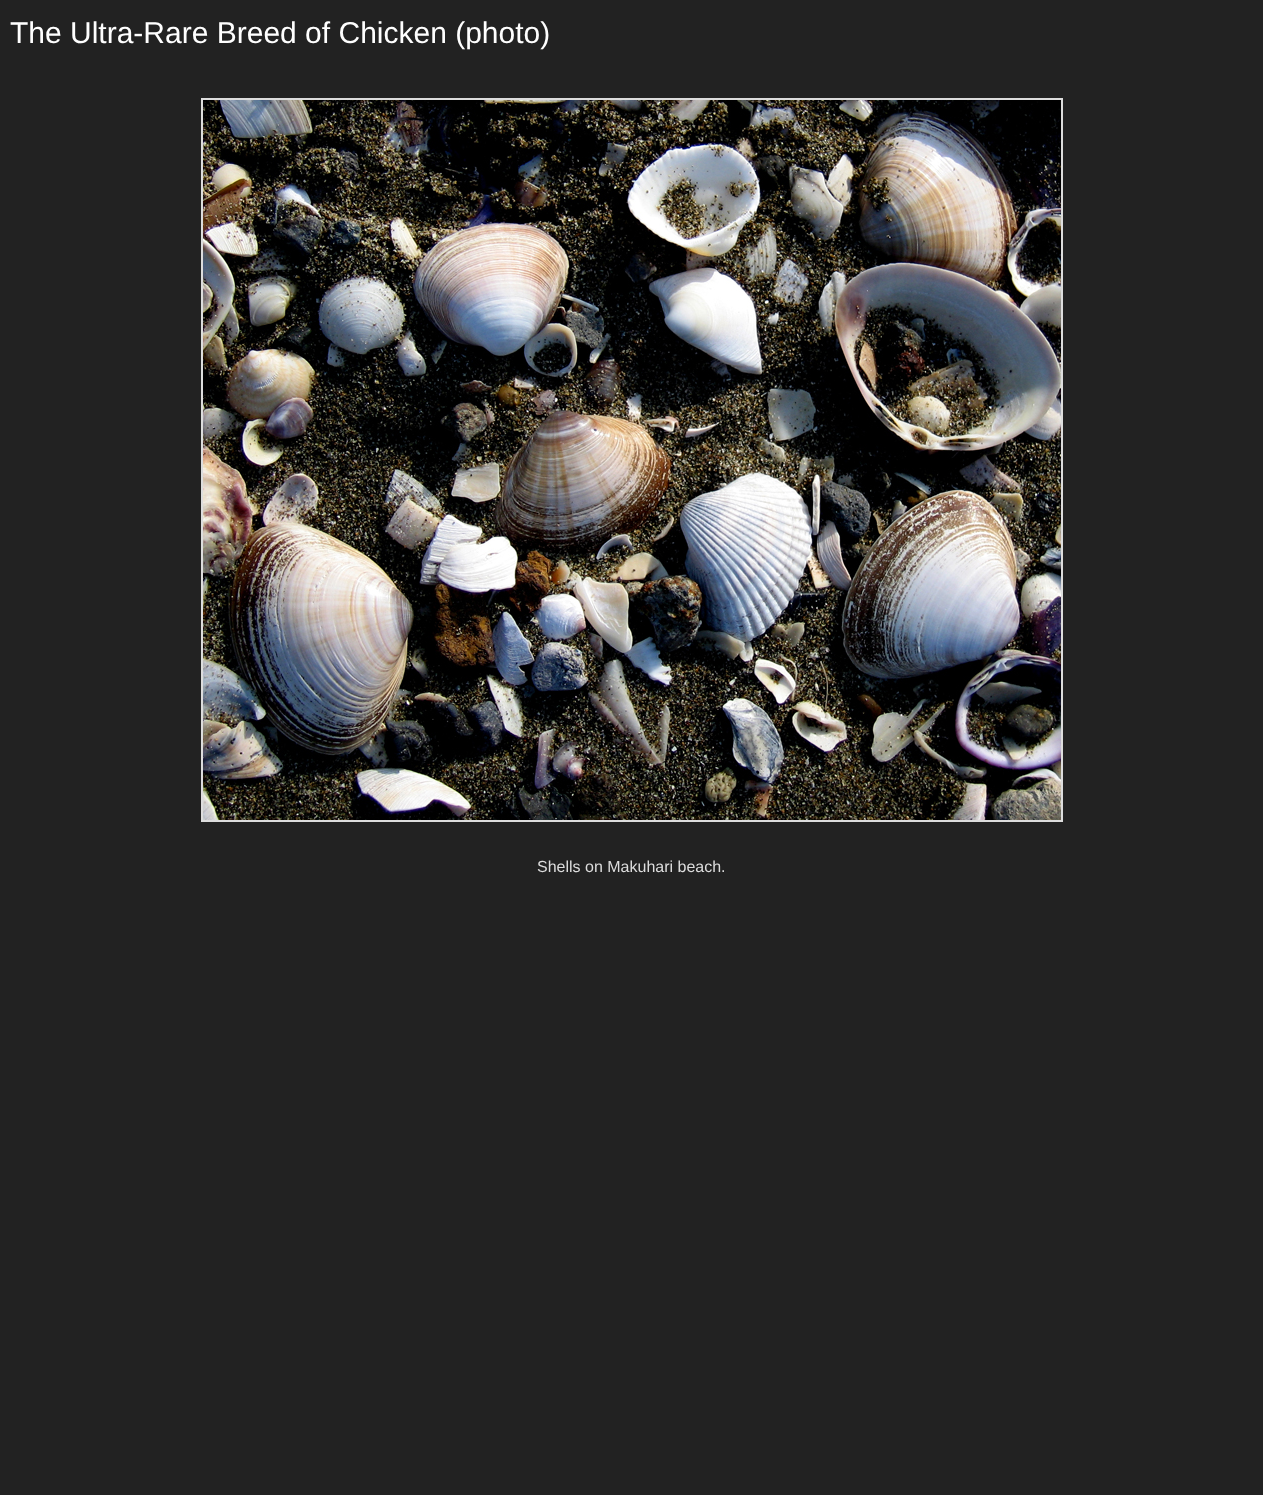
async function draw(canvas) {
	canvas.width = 1263;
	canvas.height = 1495;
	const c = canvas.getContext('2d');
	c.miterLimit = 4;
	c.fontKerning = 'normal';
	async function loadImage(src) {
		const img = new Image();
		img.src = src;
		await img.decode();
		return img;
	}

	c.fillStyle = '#222';
	c.fillRect(0, 0, 1263, 1495);
	c.font = '30px Liberation Sans';
	c.fillStyle = '#fff';
	c.fillText('The Ultra-Rare Breed of Chicken (photo)', 10, 43);
	c.strokeStyle = '#ddd';
	c.lineWidth = 2;
	c.strokeRect(202, 99, 860, 722);
	c.drawImage(await loadImage('img1.png'), 203, 100, 858, 720);
	c.font = '16px Liberation Sans';
	c.fillStyle = '#ddd';
	c.fillText('Shells on Makuhari beach.', 537, 872);
}

draw(document.querySelector('canvas'));
